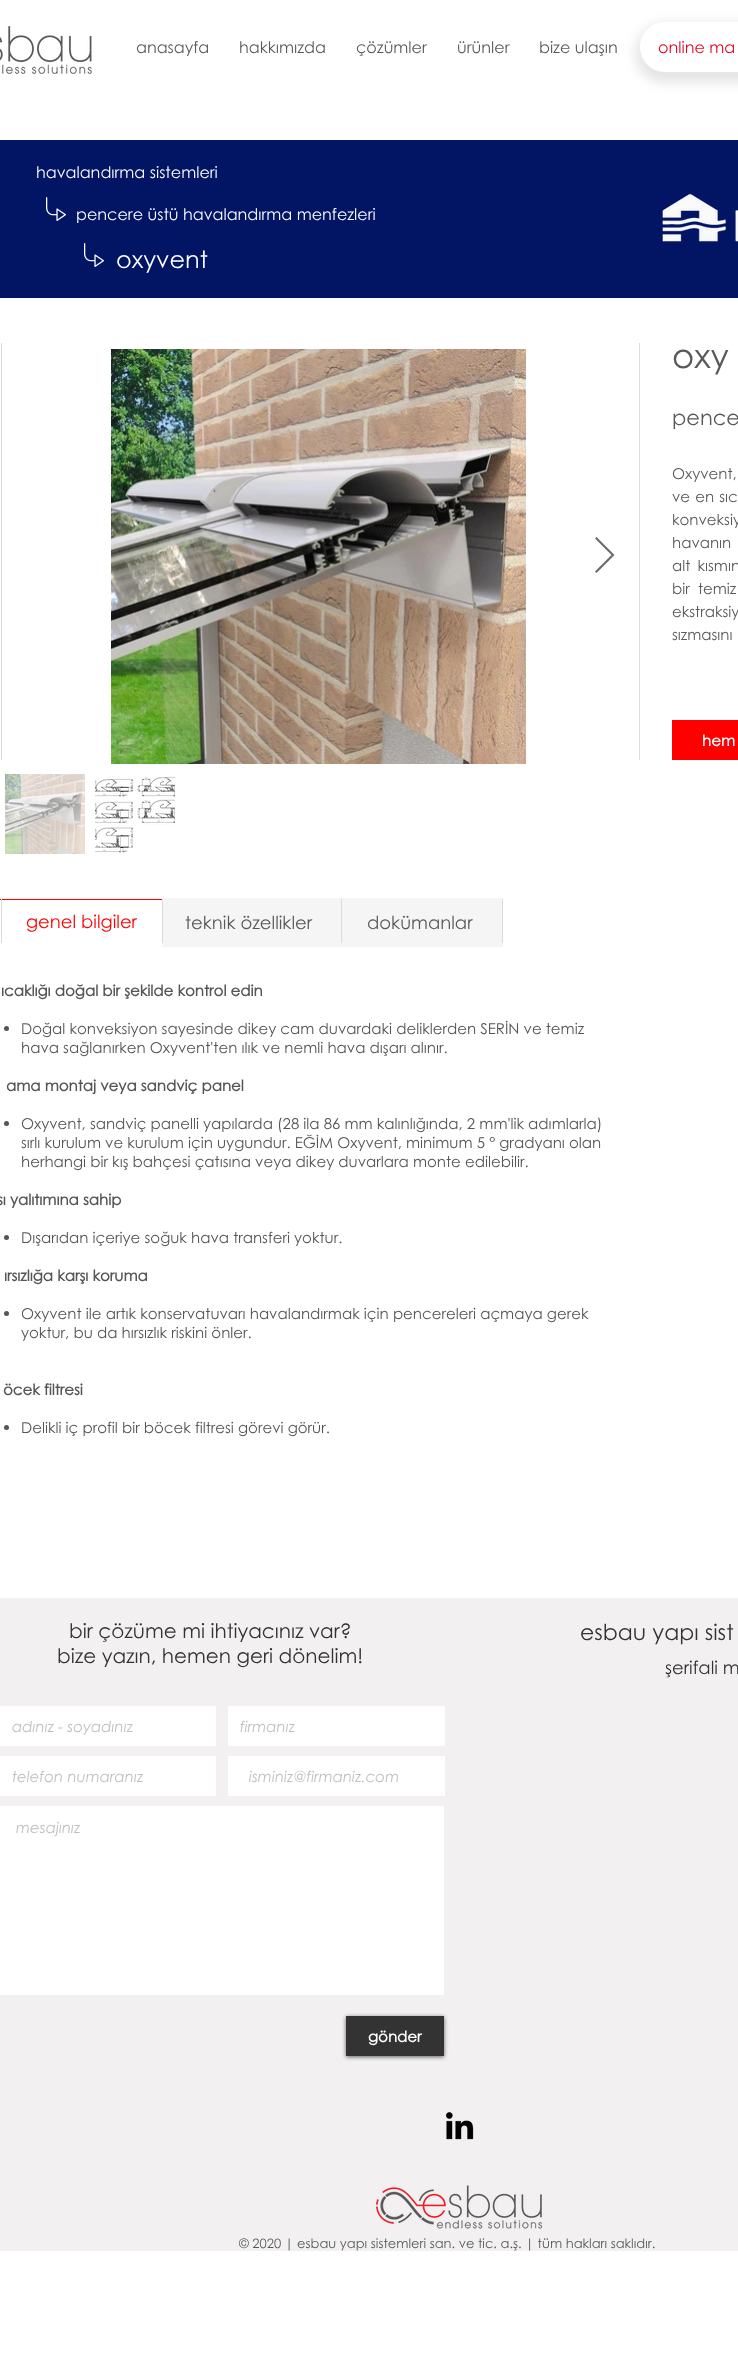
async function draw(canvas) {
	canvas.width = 738;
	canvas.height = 2375;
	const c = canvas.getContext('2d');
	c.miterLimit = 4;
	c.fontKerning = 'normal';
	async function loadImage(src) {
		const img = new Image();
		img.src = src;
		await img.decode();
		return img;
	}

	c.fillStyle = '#fff';
	c.fillRect(0, 0, 738, 2375);
	c.drawImage(await loadImage('img1.png'), 0, 26, 92, 48);
	c.font = '16px Century Gothic';
	c.fillStyle = '#58595b';
	for (const [text, x, y] of [
		['anasayfa', 136, 53],
		['hakkımızda', 239, 53],
		['çözümler', 356, 53],
		['ürünler', 457, 53],
		['bize ulaşın', 539, 53],
	]) {
		c.fillText(text, x, y);
	}
	c.fillStyle = '#0000001a';
	c.filter = 'blur(6px)';
	c.beginPath();
	c.roundRect(635, 23, 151, 60, 30);
	c.fill();
	c.filter = 'none';
	c.fillStyle = '#fff';
	c.beginPath();
	c.roundRect(641, 23, 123, 48, 24);
	c.fill();
	c.strokeStyle = '#fff';
	c.lineWidth = 2;
	c.stroke();
	c.fillStyle = '#e40520';
	c.fillText('online ma', 658, 53);
	c.fillStyle = '#011564';
	c.fillRect(0, 140, 738, 158);
	c.fillStyle = '#fff';
	c.fillText('havalandırma sistemleri', 36, 178);
	c.drawImage(await loadImage('img2.png'), 46, 197, 20, 24);
	c.fillText('pencere üstü havalandırma menfezleri', 76, 220);
	c.drawImage(await loadImage('img2.png'), 84, 243, 20, 24);
	c.font = '24px Century Gothic';
	c.fillText('oxyvent', 116, 268);
	c.drawImage(await loadImage('img3.png'), 662, 193, 76, 49);
	c.fillStyle = '#dbdbdb';
	c.fillRect(1, 343, 1, 417);
	c.drawImage(await loadImage('img4.png'), 111, 349, 415, 415);
	c.fillStyle = '#696a6b';
	c.beginPath();
	c.moveTo(595, 538.5);
	c.lineTo(596.5, 537);
	c.lineTo(614.5, 555);
	c.lineTo(596.5, 573);
	c.lineTo(595, 571.5);
	c.lineTo(611.5, 555);
	c.closePath();
	c.fill();
	c.drawImage(await loadImage('img5.png'), 5, 774, 80, 80);
	c.drawImage(await loadImage('img6.png'), 95, 776, 80, 77);
	c.fillStyle = '#dbdbdb';
	c.fillRect(639, 343, 1, 417);
	c.font = '34px Century Gothic';
	c.fillStyle = '#58595b';
	c.fillText('oxy', 672, 368);
	c.font = '21px Century Gothic';
	c.fillText('pence', 672, 425);
	c.wordSpacing = '1px';
	c.font = '15px Century Gothic';
	c.fillText('Oxyvent,', 672, 479);
	c.fillText('ve en sıc', 672, 502);
	c.wordSpacing = '9px';
	c.fillText('konveksiy', 672, 525);
	c.wordSpacing = '2px';
	c.fillText('havanın', 672, 548);
	c.wordSpacing = '3px';
	c.fillText('alt kısmın', 672, 571);
	c.wordSpacing = '4px';
	c.fillText('bir temiz', 672, 594);
	c.wordSpacing = '2px';
	c.fillText('ekstraksiy', 672, 617);
	c.wordSpacing = '0px';
	c.fillText('sızmasını', 672, 640);
	c.fillStyle = '#f00';
	c.fillRect(672, 720, 66, 40);
	c.font = 'bold 15px Century Gothic';
	c.fillStyle = '#fff';
	c.fillText('hem', 702, 746);
	for (const [x, y, w, h, color] of [
		[0, 899, 162, 1, '#f00'],
		[1, 899, 1, 44, '#dbdbdb'],
		[162, 898, 341, 49, '#f5f5f5'],
	]) {
		c.fillStyle = color;
		c.fillRect(x, y, w, h);
	}
	c.font = '18px Century Gothic';
	c.fillStyle = '#f00';
	c.fillText('genel bilgiler', 26, 928);
	c.fillStyle = '#dbdbdb';
	c.fillRect(162, 899, 1, 44);
	c.fillStyle = '#58595b';
	c.fillText('teknik özellikler', 185, 929);
	c.fillStyle = '#dbdbdb';
	c.fillRect(341, 899, 1, 44);
	c.fillStyle = '#58595b';
	c.fillText('dokümanlar', 367, 929);
	c.fillStyle = '#dbdbdb';
	c.fillRect(502, 899, 1, 44);
	c.font = 'bold 15px "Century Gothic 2"';
	c.fillStyle = '#555';
	c.fillText('ıcaklığı doğal bir şekilde kontrol edin', 1, 996);
	c.beginPath();
	c.arc(6.5, 1028.5, 2.5, 0, 2 * Math.PI);
	c.fill();
	c.font = '15px "Century Gothic 2"';
	c.fillText('Doğal konveksiyon sayesinde dikey cam duvardaki deliklerden SERİN ve temiz', 21, 1034);
	c.fillText('hava sağlanırken Oxyvent\'ten ılık ve nemli hava dışarı alınır.', 21, 1053);
	c.font = 'bold 15px "Century Gothic 2"';
	c.fillText('ama montaj veya sandviç panel', 6, 1091);
	c.beginPath();
	c.arc(6.5, 1123.5, 2.5, 0, 2 * Math.PI);
	c.fill();
	c.font = '15px "Century Gothic 2"';
	for (const [text, x, y] of [
		['Oxyvent, sandviç panelli yapılarda (28 ila 86 mm kalınlığında, 2 mm\'lik adımlarla)', 21, 1129],
		['sırlı kurulum ve kurulum için uygundur. EĞİM Oxyvent, minimum 5 ° gradyanı olan', 21, 1148],
		['herhangi bir kış bahçesi çatısına veya dikey duvarlara monte edilebilir.', 21, 1167],
	]) {
		c.fillText(text, x, y);
	}
	c.font = 'bold 15px "Century Gothic 2"';
	c.fillText('sı yalıtımına sahip', -3, 1205);
	c.beginPath();
	c.arc(6.5, 1237.5, 2.5, 0, 2 * Math.PI);
	c.fill();
	c.font = '15px "Century Gothic 2"';
	c.fillText('Dışarıdan içeriye soğuk hava transferi yoktur.', 21, 1243);
	c.font = 'bold 15px "Century Gothic 2"';
	c.fillText('ırsızlığa karşı koruma', 4, 1281);
	c.beginPath();
	c.arc(6.5, 1313.5, 2.5, 0, 2 * Math.PI);
	c.fill();
	c.font = '15px "Century Gothic 2"';
	c.fillText('Oxyvent ile artık konservatuvarı havalandırmak için pencereleri açmaya gerek', 21, 1319);
	c.fillText('yoktur, bu da hırsızlık riskini önler.', 21, 1338);
	c.font = 'bold 15px "Century Gothic 2"';
	c.fillText('öcek filtresi', 3, 1395);
	c.beginPath();
	c.arc(6.5, 1427.5, 2.5, 0, 2 * Math.PI);
	c.fill();
	c.font = '15px "Century Gothic 2"';
	c.fillText('Delikli iç profil bir böcek filtresi görevi görür.', 21, 1433);
	c.fillStyle = '#f2f0f0';
	c.fillRect(0, 1598, 738, 653);
	c.font = '20px Century Gothic';
	c.fillStyle = '#333';
	c.fillText('bir çözüme mi ihtiyacınız var?', 69, 1638);
	c.fillText('bize yazın, hemen geri dönelim!', 57, 1663);
	c.font = '22px Century Gothic';
	c.fillText('esbau yapı sist', 580, 1640);
	c.font = '18px Century Gothic';
	c.fillText('şerifali m', 665, 1674);
	c.fillStyle = '#fff';
	c.fillRect(0, 1706, 216, 40);
	c.font = 'italic 15px Century Gothic';
	c.fillStyle = '#c2bec2';
	c.fillText('adınız - soyadınız', 12, 1732);
	c.fillStyle = '#fff';
	c.fillRect(228, 1706, 217, 40);
	c.fillStyle = '#c2bec2';
	c.fillText('firmanız', 240, 1732);
	c.fillStyle = '#fff';
	c.fillRect(0, 1756, 216, 40);
	c.fillStyle = '#c2bec2';
	c.fillText('telefon numaranız', 12, 1782);
	c.fillStyle = '#fff';
	c.fillRect(228, 1756, 217, 40);
	c.fillStyle = '#c2bec2';
	c.fillText('isminiz@firmaniz.com', 249, 1782);
	c.fillStyle = '#fff';
	c.fillRect(0, 1806, 444, 189);
	c.fillStyle = '#c2bec2';
	c.fillText('mesajınız', 16, 1833);
	c.fillStyle = '#00000099';
	c.filter = 'blur(2px)';
	c.beginPath();
	c.rect(346, 2017, 98, 40);
	c.fill();
	c.filter = 'none';
	c.fillStyle = '#333';
	c.fillRect(346, 2016, 98, 40);
	c.font = 'bold 15px Century Gothic';
	c.fillStyle = '#fff';
	c.fillText('gönder', 368, 2042);
	c.drawImage(await loadImage('img7.png'), 445, 2112, 29, 28);
	c.drawImage(await loadImage('img8.png'), 376, 2185, 167, 44);
	c.font = '13px Century Gothic';
	c.fillStyle = '#58595b';
	c.fillText('© 2020 | esbau yapı sistemleri san. ve tic. a.ş. | tüm hakları saklıdır.', 239, 2248);
}

draw(document.querySelector('canvas'));
